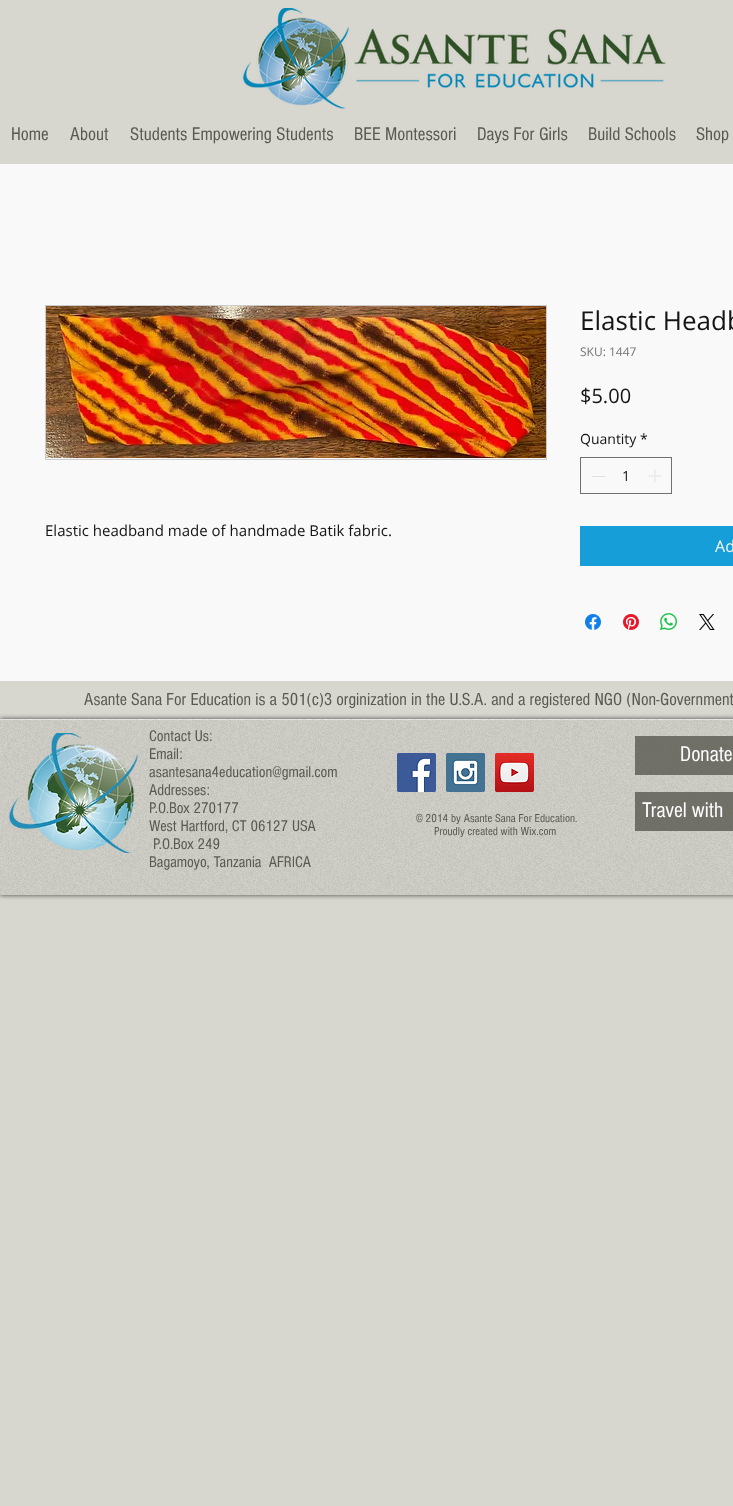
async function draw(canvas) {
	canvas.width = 733;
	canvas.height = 1506;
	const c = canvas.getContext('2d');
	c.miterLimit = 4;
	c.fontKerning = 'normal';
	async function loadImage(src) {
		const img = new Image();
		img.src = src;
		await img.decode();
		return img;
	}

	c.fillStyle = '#d7d6cf';
	c.fillRect(0, 0, 733, 1506);
	c.drawImage(await loadImage('img1.png'), 241, 8, 425, 102);
	c.font = '19px "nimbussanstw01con"';
	c.fillStyle = '#5a5950';
	for (const [text, x, y] of [
		['Home', 11, 140],
		['About', 70, 140],
		['Students Empowering Students', 130, 140],
		['BEE Montessori', 354, 140],
		['Days For Girls', 477, 140],
		['Build Schools', 588, 140],
		['Shop', 696, 140],
	]) {
		c.fillText(text, x, y);
	}
	c.fillStyle = '#f9f9f9';
	c.fillRect(0, 164, 733, 517);
	c.strokeStyle = '#cdcccc';
	c.strokeRect(45.5, 305.5, 501, 154);
	c.drawImage(await loadImage('img2.png'), 46, 306, 500, 152);
	c.font = '15px Open Sans';
	c.fillStyle = '#141414';
	c.fillText('Elastic headband made of handmade Batik fabric.', 45, 536);
	c.font = '26px Open Sans';
	c.fillText('Elastic Headb', 580, 330);
	c.font = '12px Open Sans';
	c.fillStyle = '#727272';
	c.fillText('SKU: 1447', 580, 356);
	c.font = '20px Open Sans';
	c.fillStyle = '#141414';
	c.fillText('$5.00', 580, 403);
	c.font = '14px Open Sans';
	c.fillText('Quantity', 580, 444);
	c.fillText('*', 640, 444);
	c.strokeStyle = '#707070';
	c.strokeRect(580.5, 457.5, 91, 36);
	c.fillStyle = '#e0e0e0';
	c.fillRect(592, 476, 13, 1);
	c.fillStyle = '#141414';
	c.fillText('1', 622, 481);
	c.drawImage(await loadImage('img3.png'), 648, 469, 14, 14);
	c.fillStyle = '#159ed8';
	c.fillRect(580, 526, 153, 40);
	c.font = '16px Open Sans';
	c.fillStyle = '#f9f9f9';
	c.fillText('Ad', 715, 552);
	c.drawImage(await loadImage('img4.png'), 585, 614, 16, 16);
	c.drawImage(await loadImage('img5.png'), 623, 614, 16, 16);
	c.drawImage(await loadImage('img6.png'), 660, 613, 17, 17);
	c.drawImage(await loadImage('img7.png'), 699, 614, 16, 16);
	c.font = '18px "nimbussanstw01con"';
	c.fillStyle = '#5a5950';
	c.fillText('Asante Sana For Education is a 501(c)3 orginization in the U.S.A. and a registered NGO (Non-Government', 84, 705);
	c.fillStyle = '#d0cfc8';
	c.fillRect(0, 720, 733, 175);
	c.fillStyle = '#ecebe9';
	c.fillRect(0, 719, 733, 1);
	c.save();
	c.beginPath();
	c.moveTo(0, 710);
	c.lineTo(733, 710);
	c.lineTo(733, 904);
	c.lineTo(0, 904);
	c.closePath();
	c.moveTo(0, 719);
	c.lineTo(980, 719);
	c.lineTo(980, 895);
	c.lineTo(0, 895);
	c.closePath();
	c.clip('evenodd');
	c.fillStyle = '#000000b3';
	c.filter = 'blur(2.5px)';
	c.beginPath();
	c.rect(0, 719, 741, 176);
	c.fill();
	c.filter = 'none';
	c.restore();
	c.drawImage(await loadImage('img8.png'), 0, 719, 733, 176);
	c.drawImage(await loadImage('img9.png'), 9, 733, 129, 120);
	c.font = '16px "nimbussanstw01con"';
	c.fillStyle = '#5a5950';
	for (const [text, x, y] of [
		['Contact Us:', 149, 741],
		['Email:', 149, 759],
		['asantesana4education@gmail.com', 149, 777],
		['Addresses:', 149, 795],
		['P.O.Box 270177', 149, 813],
		['West Hartford, CT 06127 USA', 149, 831],
		['P.O.Box 249', 153, 849],
		['Bagamoyo, Tanzania  AFRICA', 149, 867],
	]) {
		c.fillText(text, x, y);
	}
	c.drawImage(await loadImage('img10.png'), 397, 753, 39, 39);
	c.drawImage(await loadImage('img11.png'), 446, 753, 39, 39);
	c.drawImage(await loadImage('img12.png'), 495, 753, 39, 39);
	c.fillStyle = '#5a5950cc';
	c.fillRect(635, 736, 98, 39);
	c.font = '22px "nimbussanstw01con"';
	c.fillStyle = '#fff';
	c.fillText('Donate', 680, 761);
	c.fillStyle = '#5a5950cc';
	c.fillRect(635, 792, 98, 39);
	c.fillStyle = '#fff';
	c.fillText('Travel with', 642, 817);
	c.font = '12px "nimbussanstw01con"';
	c.fillStyle = '#5a5950';
	c.fillText('© 2014 by Asante Sana For Education.', 416, 822);
	c.fillText('Proudly created with Wix.com', 434, 835);
}

draw(document.querySelector('canvas'));
